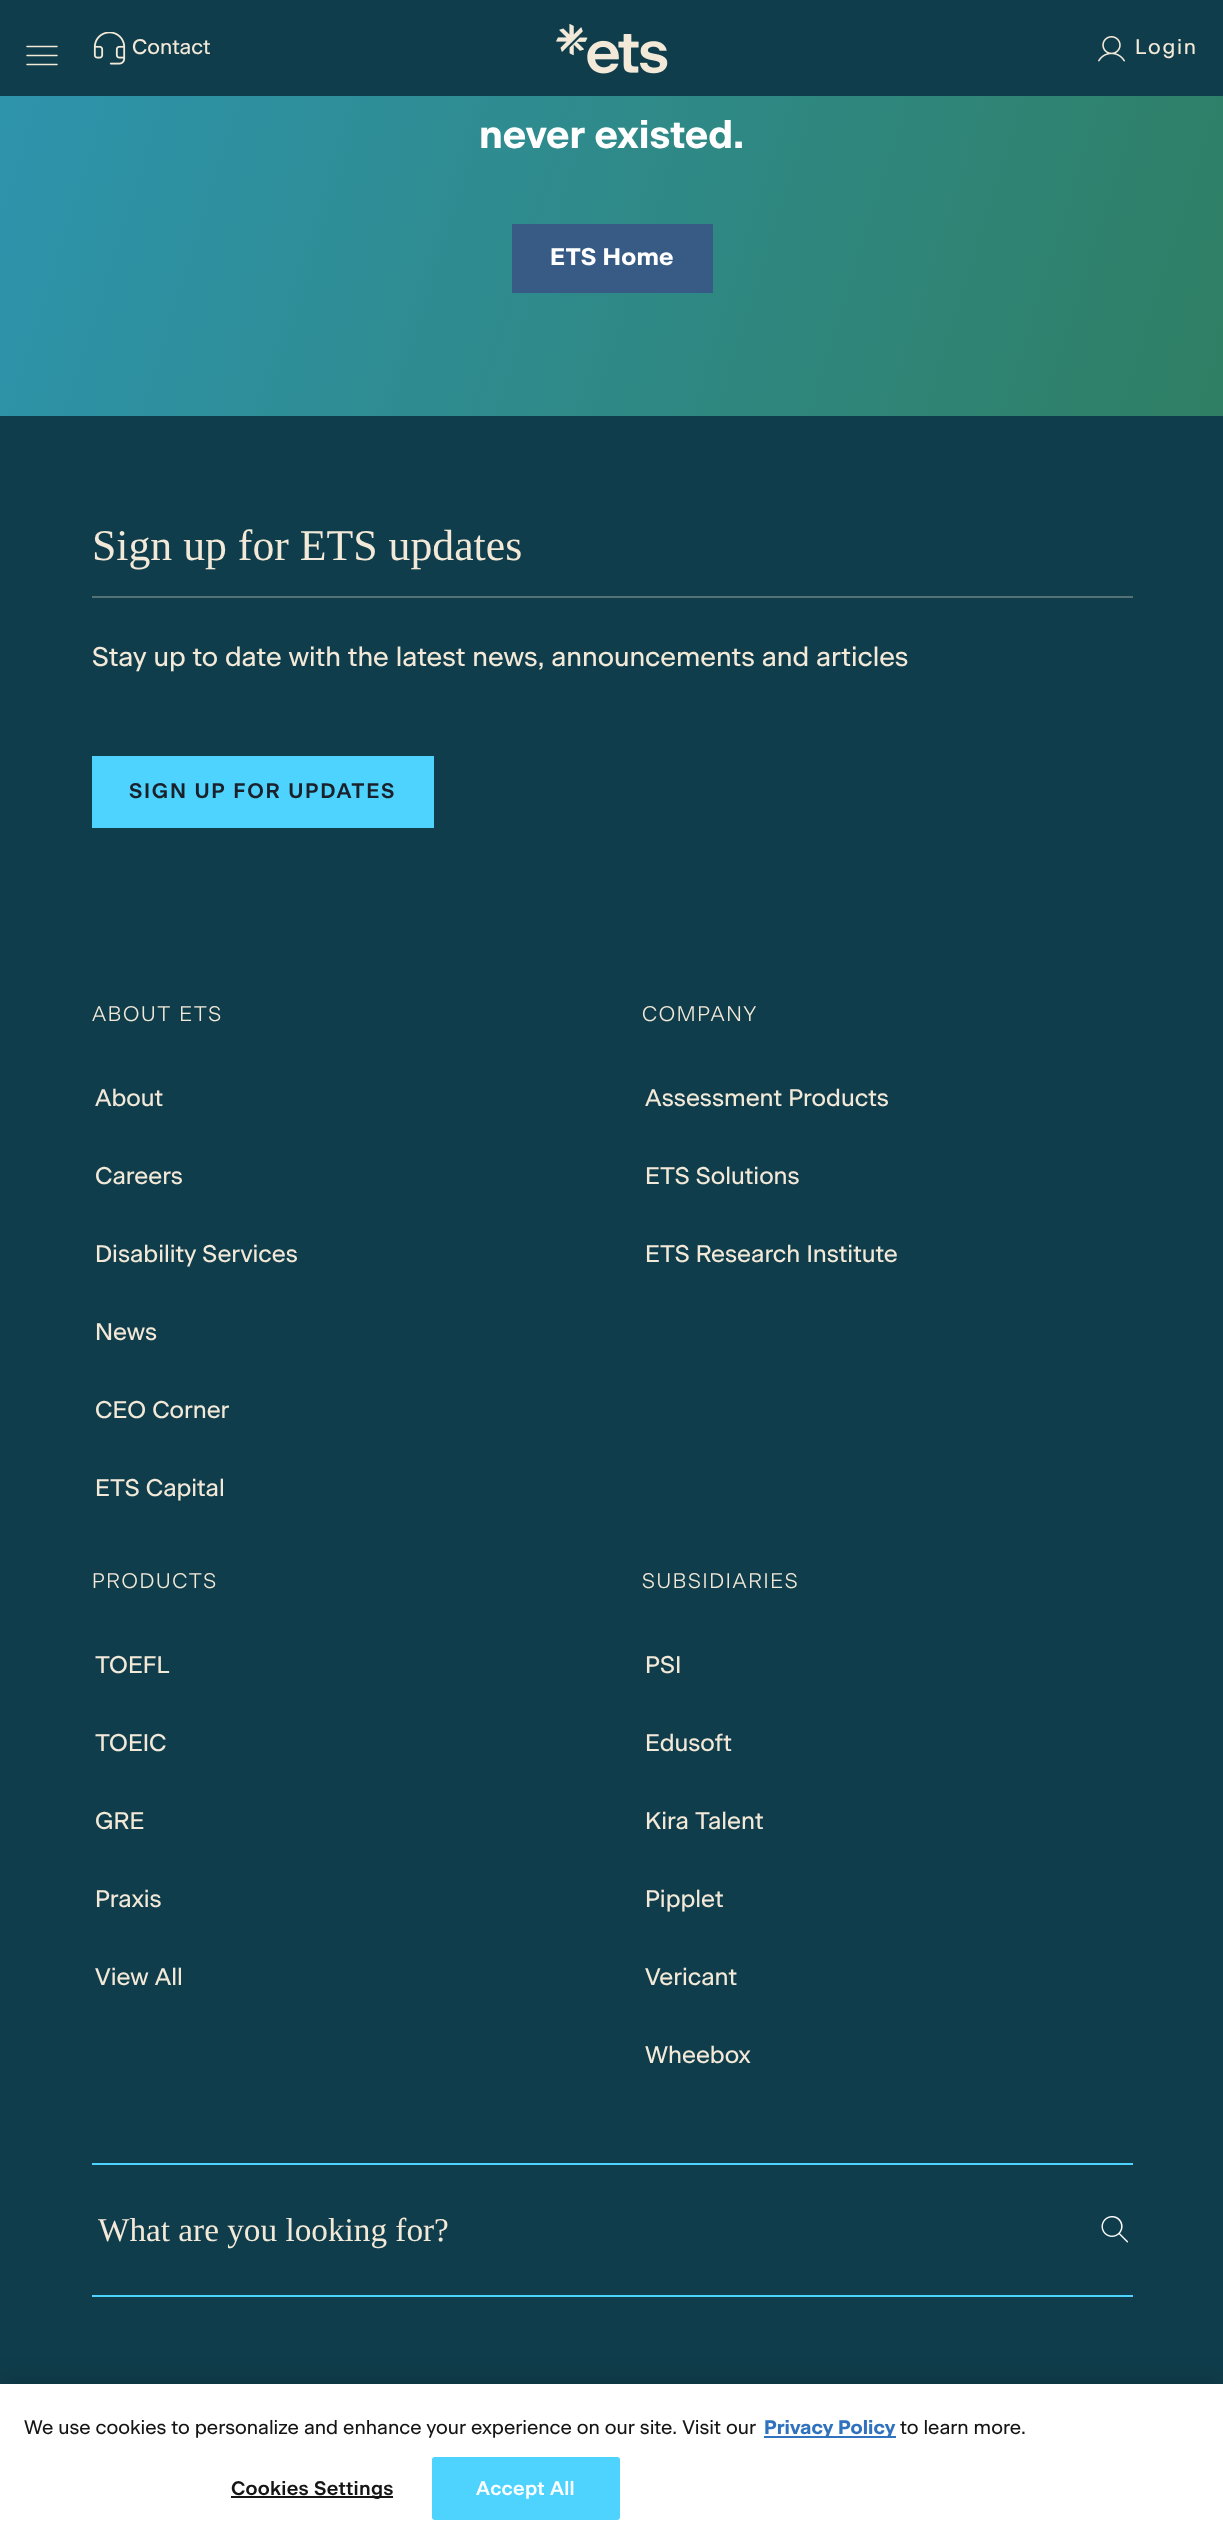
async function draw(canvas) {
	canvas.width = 1223;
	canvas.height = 2543;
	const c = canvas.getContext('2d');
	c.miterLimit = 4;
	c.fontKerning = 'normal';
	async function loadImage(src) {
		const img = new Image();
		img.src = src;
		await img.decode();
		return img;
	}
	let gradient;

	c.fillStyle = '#103d4b';
	c.fillRect(0, 0, 1223, 2543);
	c.beginPath();
	c.moveTo(27, 46.5);
	c.lineTo(57, 46.5);
	c.moveTo(27, 55.5);
	c.lineTo(57, 55.5);
	c.moveTo(27, 64.5);
	c.lineTo(57, 64.5);
	c.strokeStyle = '#f2e9d8';
	c.lineWidth = 1.5;
	c.lineCap = 'round';
	c.lineJoin = 'round';
	c.stroke();
	c.drawImage(await loadImage('img1.png'), 93, 32, 33, 33);
	c.font = '21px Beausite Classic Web';
	c.fillStyle = '#f2e9d8';
	c.fillText('Contact', 132, 54);
	c.drawImage(await loadImage('img2.png'), 556, 24, 112, 50);
	c.drawImage(await loadImage('img3.png'), 1098, 36, 27, 26);
	c.letterSpacing = '1.7px';
	c.fillText('Login', 1135, 54);
	gradient = c.createLinearGradient(-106, -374, 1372, 89);
	gradient.addColorStop(0.12, '#2e95b0');
	gradient.addColorStop(1, '#2f7e61');
	c.fillStyle = gradient;
	c.fillRect(0, 96, 1223, 320);
	c.letterSpacing = '0px';
	c.font = 'bold 39px Beausite Classic Web';
	c.fillStyle = '#fff';
	c.fillText('never existed.', 479, 148);
	c.fillStyle = '#375b85';
	c.fillRect(512, 224, 201, 69);
	c.letterSpacing = '0.25px';
	c.font = 'bold 24px Beausite Classic Web';
	c.fillStyle = '#fff';
	c.fillText('ETS Home', 550, 265);
	c.fillStyle = '#547176';
	c.fillRect(92, 596, 1041, 2);
	c.letterSpacing = '0px';
	c.font = '43.75px Liberation Serif';
	c.fillStyle = '#f2e9d8';
	c.fillText('Sign up for ETS updates', 92, 560);
	c.font = '27px Beausite Classic Web';
	c.fillText('Stay up to date with the latest news, announcements and articles', 92, 666);
	c.fillStyle = '#4dd3fe';
	c.fillRect(92, 756, 342, 72);
	c.letterSpacing = '1.7px';
	c.font = '600 21px Beausite Classic Web';
	c.fillStyle = '#1a212b';
	c.fillText('SIGN UP FOR UPDATES', 129, 798);
	c.font = '300 21px Beausite Classic Web';
	c.fillStyle = '#f2e9d8';
	c.fillText('ABOUT ETS', 92, 1021);
	c.letterSpacing = '0px';
	c.font = '24px Beausite Classic Web';
	for (const [text, x, y] of [
		['About', 95, 1106],
		['Careers', 95, 1184],
		['Disability Services', 95, 1262],
		['News', 95, 1340],
		['CEO Corner', 95, 1418],
		['ETS Capital', 95, 1496],
	]) {
		c.fillText(text, x, y);
	}
	c.letterSpacing = '1.7px';
	c.font = '300 21px Beausite Classic Web';
	c.fillText('COMPANY', 642, 1021);
	c.letterSpacing = '0px';
	c.font = '24px Beausite Classic Web';
	for (const [text, x, y] of [
		['Assessment Products', 645, 1106],
		['ETS Solutions', 645, 1184],
		['ETS Research Institute', 645, 1262],
	]) {
		c.fillText(text, x, y);
	}
	c.letterSpacing = '1.7px';
	c.font = '300 21px Beausite Classic Web';
	c.fillText('PRODUCTS', 92, 1588);
	c.letterSpacing = '0px';
	c.font = '24px Beausite Classic Web';
	for (const [text, x, y] of [
		['TOEFL', 95, 1673],
		['TOEIC', 95, 1751],
		['GRE', 95, 1829],
		['Praxis', 95, 1907],
		['View All', 95, 1985],
	]) {
		c.fillText(text, x, y);
	}
	c.letterSpacing = '1.7px';
	c.font = '300 21px Beausite Classic Web';
	c.fillText('SUBSIDIARIES', 642, 1588);
	c.letterSpacing = '0px';
	c.font = '24px Beausite Classic Web';
	for (const [text, x, y] of [
		['PSI', 645, 1673],
		['Edusoft', 645, 1751],
		['Kira Talent', 645, 1829],
		['Pipplet', 645, 1907],
		['Vericant', 645, 1985],
		['Wheebox', 645, 2063],
	]) {
		c.fillText(text, x, y);
	}
	c.fillStyle = '#4dd3fe';
	c.fillRect(92, 2163, 1041, 2);
	c.fillRect(92, 2295, 1041, 2);
	c.font = '33.25px Liberation Serif';
	c.fillStyle = '#f2e9d8';
	c.fillText('What are you looking for?', 98, 2241);
	c.drawImage(await loadImage('img4.png'), 1101, 2216, 27, 27);
	c.fillStyle = '#00000033';
	c.filter = 'blur(13.5px)';
	c.beginPath();
	c.rect(0, 2384, 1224, 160);
	c.fill();
	c.filter = 'none';
	c.fillStyle = '#fff';
	c.fillRect(0, 2384, 1223, 159);
	c.font = '19.5px Beausite Classic Web';
	c.fillStyle = '#151515';
	c.fillText('We use cookies to personalize and enhance your experience on our site. Visit our', 24, 2434);
	c.fillStyle = '#3072be';
	c.fillRect(764, 2436, 132, 2);
	c.font = 'bold 19.5px Beausite Classic Web';
	c.fillText('Privacy Policy', 764, 2434);
	c.font = '19.5px Beausite Classic Web';
	c.fillStyle = '#151515';
	c.fillText('to learn more.', 900, 2434);
	c.fillRect(231, 2496, 162, 2);
	c.letterSpacing = '0.25px';
	c.font = '600 19.5px Beausite Classic Web';
	c.fillText('Cookies Settings', 231, 2495);
	c.fillStyle = '#4dd3fe';
	c.beginPath();
	c.roundRect(433, 2458, 186, 61, 2);
	c.fill();
	c.strokeStyle = '#4dd3fe';
	c.lineWidth = 2;
	c.lineJoin = 'miter';
	c.stroke();
	c.fillStyle = '#fff';
	c.fillText('Accept All', 476, 2495);
}

draw(document.querySelector('canvas'));
